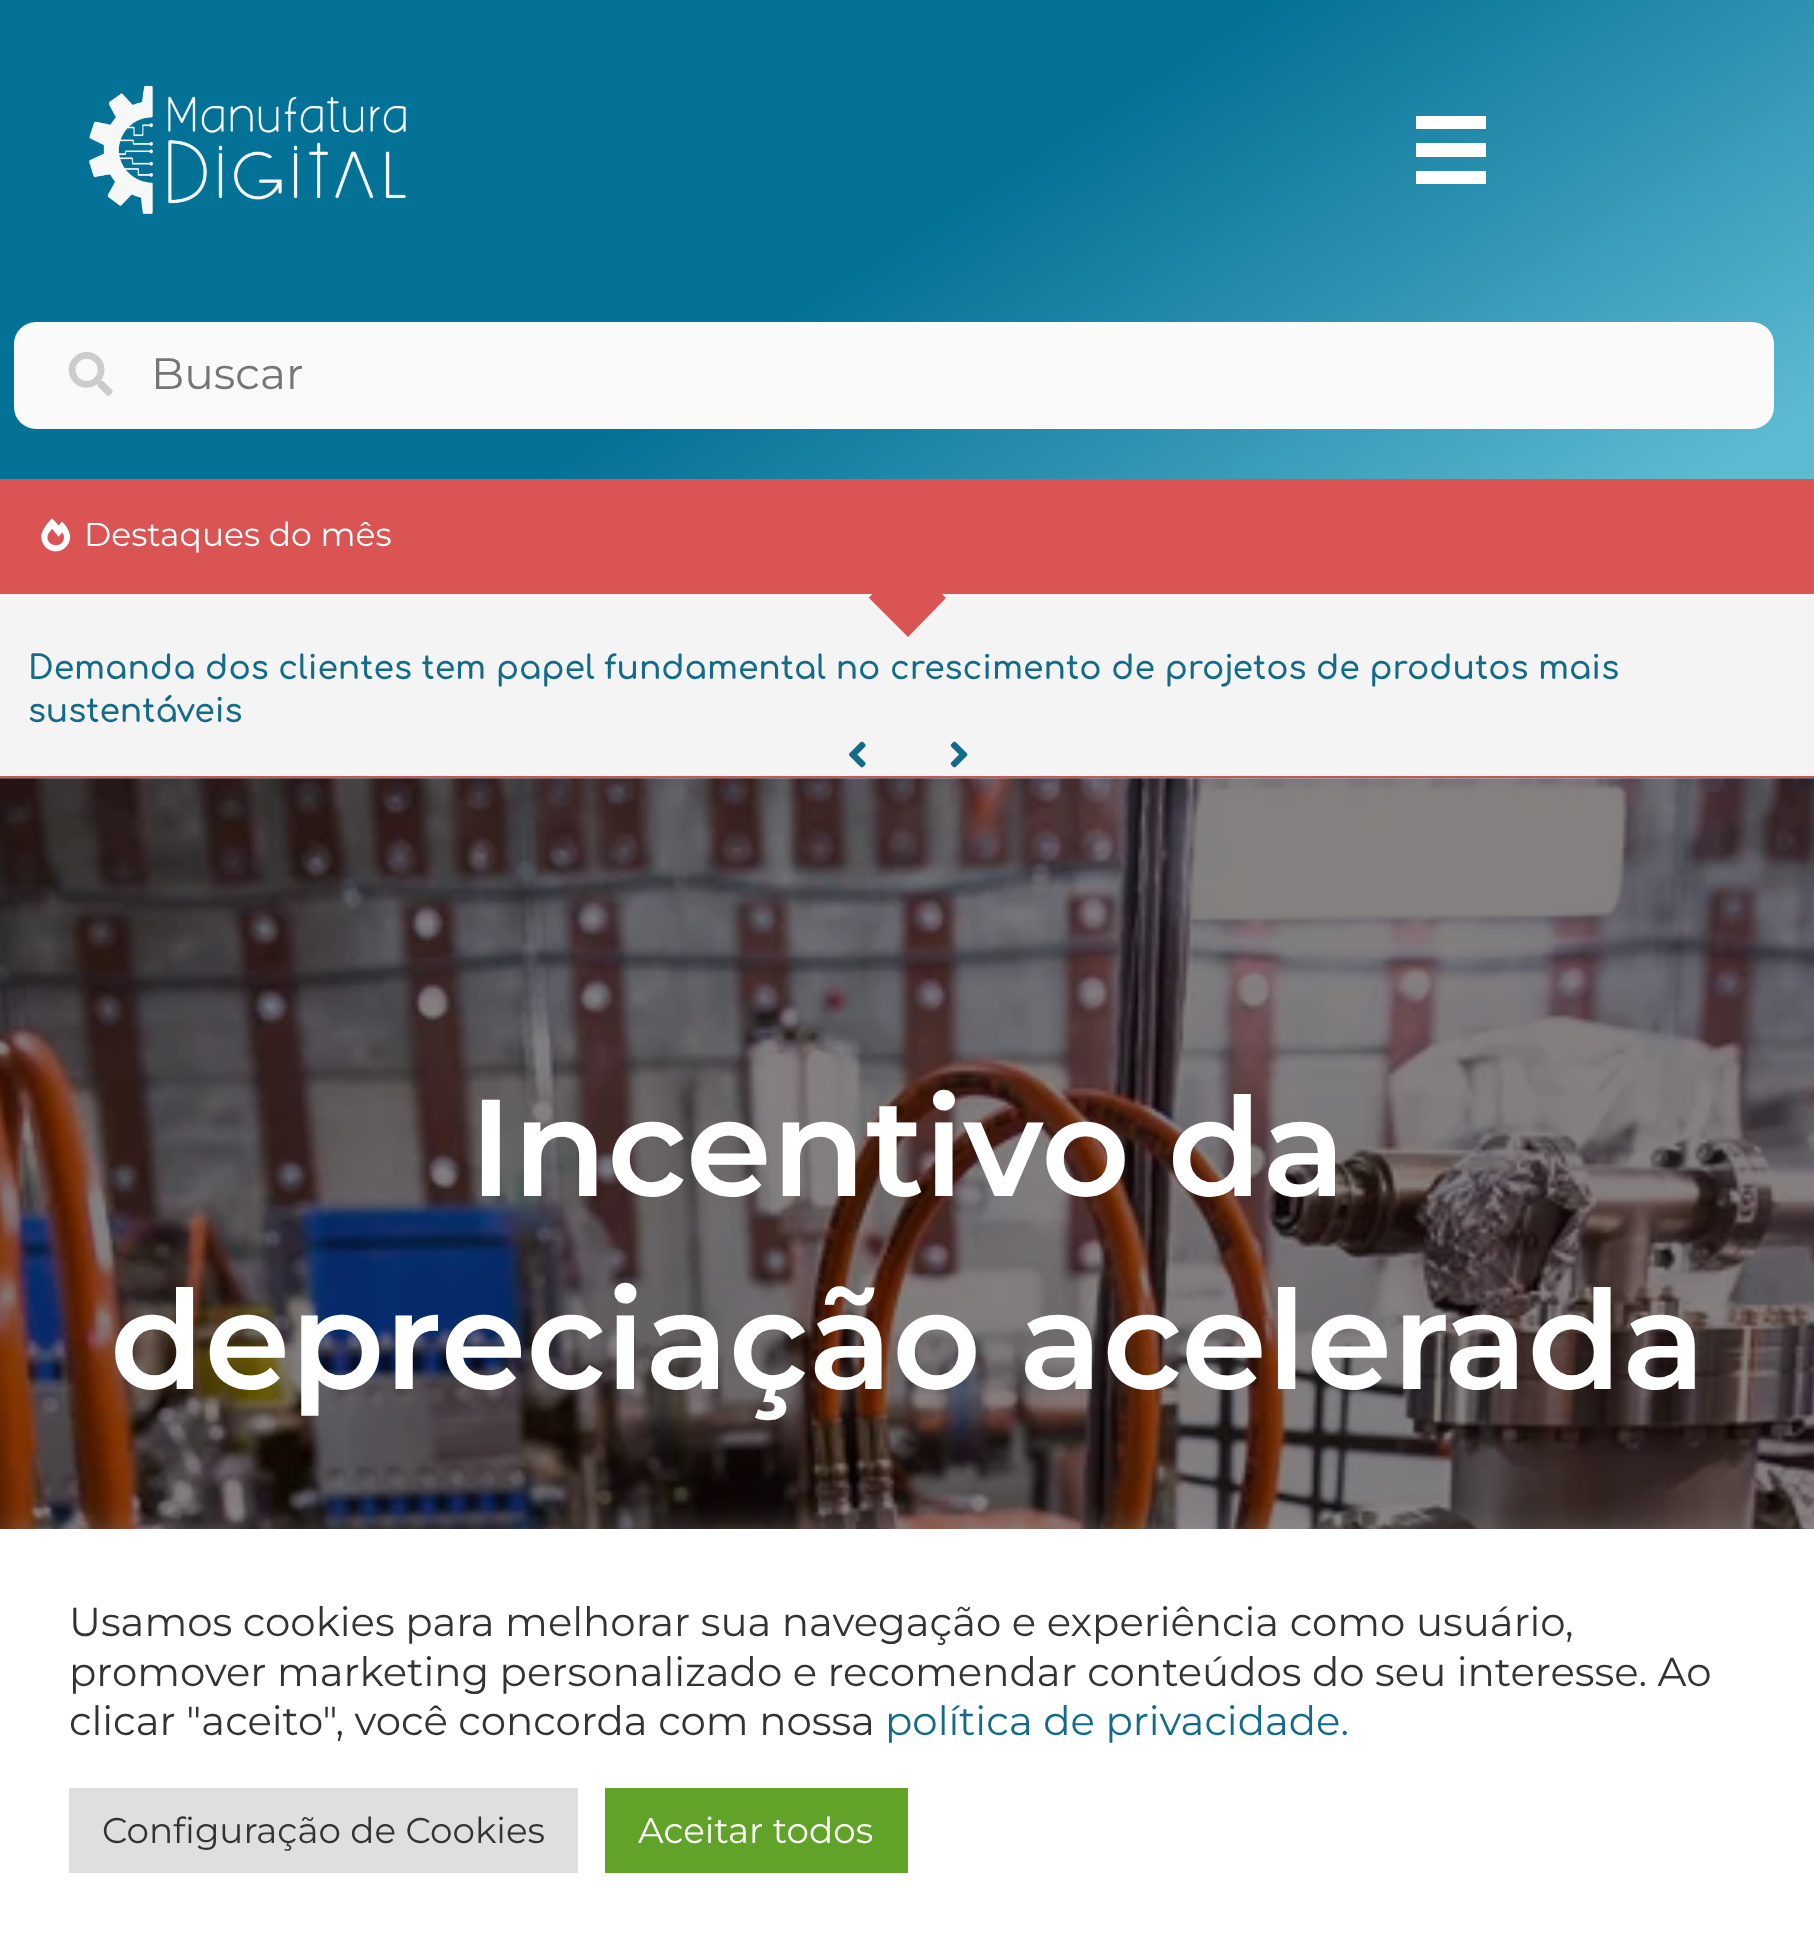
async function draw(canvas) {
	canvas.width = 1814;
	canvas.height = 1953;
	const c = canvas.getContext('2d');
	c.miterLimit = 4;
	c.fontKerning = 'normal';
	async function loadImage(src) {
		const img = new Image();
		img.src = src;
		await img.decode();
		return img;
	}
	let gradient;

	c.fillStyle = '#fff';
	c.fillRect(0, 0, 1814, 1953);
	gradient = c.createLinearGradient(529, -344, 1286, 822);
	gradient.addColorStop(0.5, '#047196');
	gradient.addColorStop(0.96, '#5ebad1');
	c.fillStyle = gradient;
	c.fillRect(0, 0, 1814, 479);
	c.drawImage(await loadImage('img1.png'), 89, 85, 317, 129);
	for (const [x, y, w, h, color] of [
		[1416, 116, 70, 13, '#fff'],
		[1416, 143, 70, 14, '#fff'],
		[1416, 171, 70, 13, '#fff'],
	]) {
		c.fillStyle = color;
		c.fillRect(x, y, w, h);
	}
	c.fillStyle = '#fafafa';
	c.beginPath();
	c.roundRect(14, 322, 1760, 107, 22);
	c.fill();
	c.drawImage(await loadImage('img2.png'), 68, 352, 45, 44);
	c.font = '44px Montserrat';
	c.fillStyle = '#757575';
	c.fillText('Buscar', 151, 389);
	for (const [x, y, w, h, color] of [
		[0, 776, 1814, 2, '#c35759'],
		[0, 594, 1814, 182, '#f4f4f4'],
		[0, 479, 1814, 115, '#d95453'],
	]) {
		c.fillStyle = color;
		c.fillRect(x, y, w, h);
	}
	c.drawImage(await loadImage('img3.png'), 41, 518, 30, 34);
	c.font = '33px Montserrat';
	c.fillStyle = '#fff';
	c.fillText('Destaques do mês', 84, 546);
	c.fillStyle = '#d95453';
	c.beginPath();
	c.moveTo(908, 559);
	c.lineTo(946, 598);
	c.lineTo(908, 637);
	c.lineTo(869, 598);
	c.closePath();
	c.fill();
	c.beginPath();
	c.moveTo(868.5, 598);
	c.lineTo(907.5, 559);
	c.lineTo(907.5, 598);
	c.closePath();
	c.fill();
	c.font = '600 33px Comfortaa';
	c.fillStyle = '#136b89';
	c.fillText('Demanda dos clientes tem papel fundamental no crescimento de projetos de produtos mais', 28, 679);
	c.fillText('sustentáveis', 28, 722);
	c.drawImage(await loadImage('img4.png'), 849, 741, 17, 27);
	c.drawImage(await loadImage('img5.png'), 950, 741, 18, 27);
	c.drawImage(await loadImage('img6.png'), 0, 778, 1814, 751);
	c.font = '600 137.5px Montserrat';
	c.fillStyle = '#fff';
	c.fillText('Incentivo da', 469, 1196);
	c.fillText('depreciação acelerada', 110, 1389);
	c.fillStyle = '#acabab4d';
	c.filter = 'blur(14px)';
	c.beginPath();
	c.rect(0, 1526, 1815, 427);
	c.fill();
	c.filter = 'none';
	c.fillStyle = '#fff';
	c.fillRect(0, 1529, 1814, 424);
	c.font = '40.35px Montserrat';
	c.fillStyle = '#333';
	c.fillText('Usamos cookies para melhorar sua navegação e experiência como usuário,', 69, 1636);
	c.wordSpacing = '-0.1px';
	c.fillText('promover marketing personalizado e recomendar conteúdos do seu interesse. Ao', 69, 1686);
	c.wordSpacing = '0px';
	c.fillText('clicar "aceito", você concorda com nossa', 69, 1735);
	c.fillStyle = '#136b89';
	c.fillText('política de privacidade.', 885, 1735);
	c.fillStyle = '#dedfe0';
	c.fillRect(69, 1788, 509, 85);
	c.font = '35.75px Montserrat';
	c.fillStyle = '#333';
	c.fillText('Configuração de Cookies', 102, 1843);
	c.fillStyle = '#61a229';
	c.fillRect(605, 1788, 303, 85);
	c.fillStyle = '#fff';
	c.fillText('Aceitar todos', 638, 1843);
}

draw(document.querySelector('canvas'));
